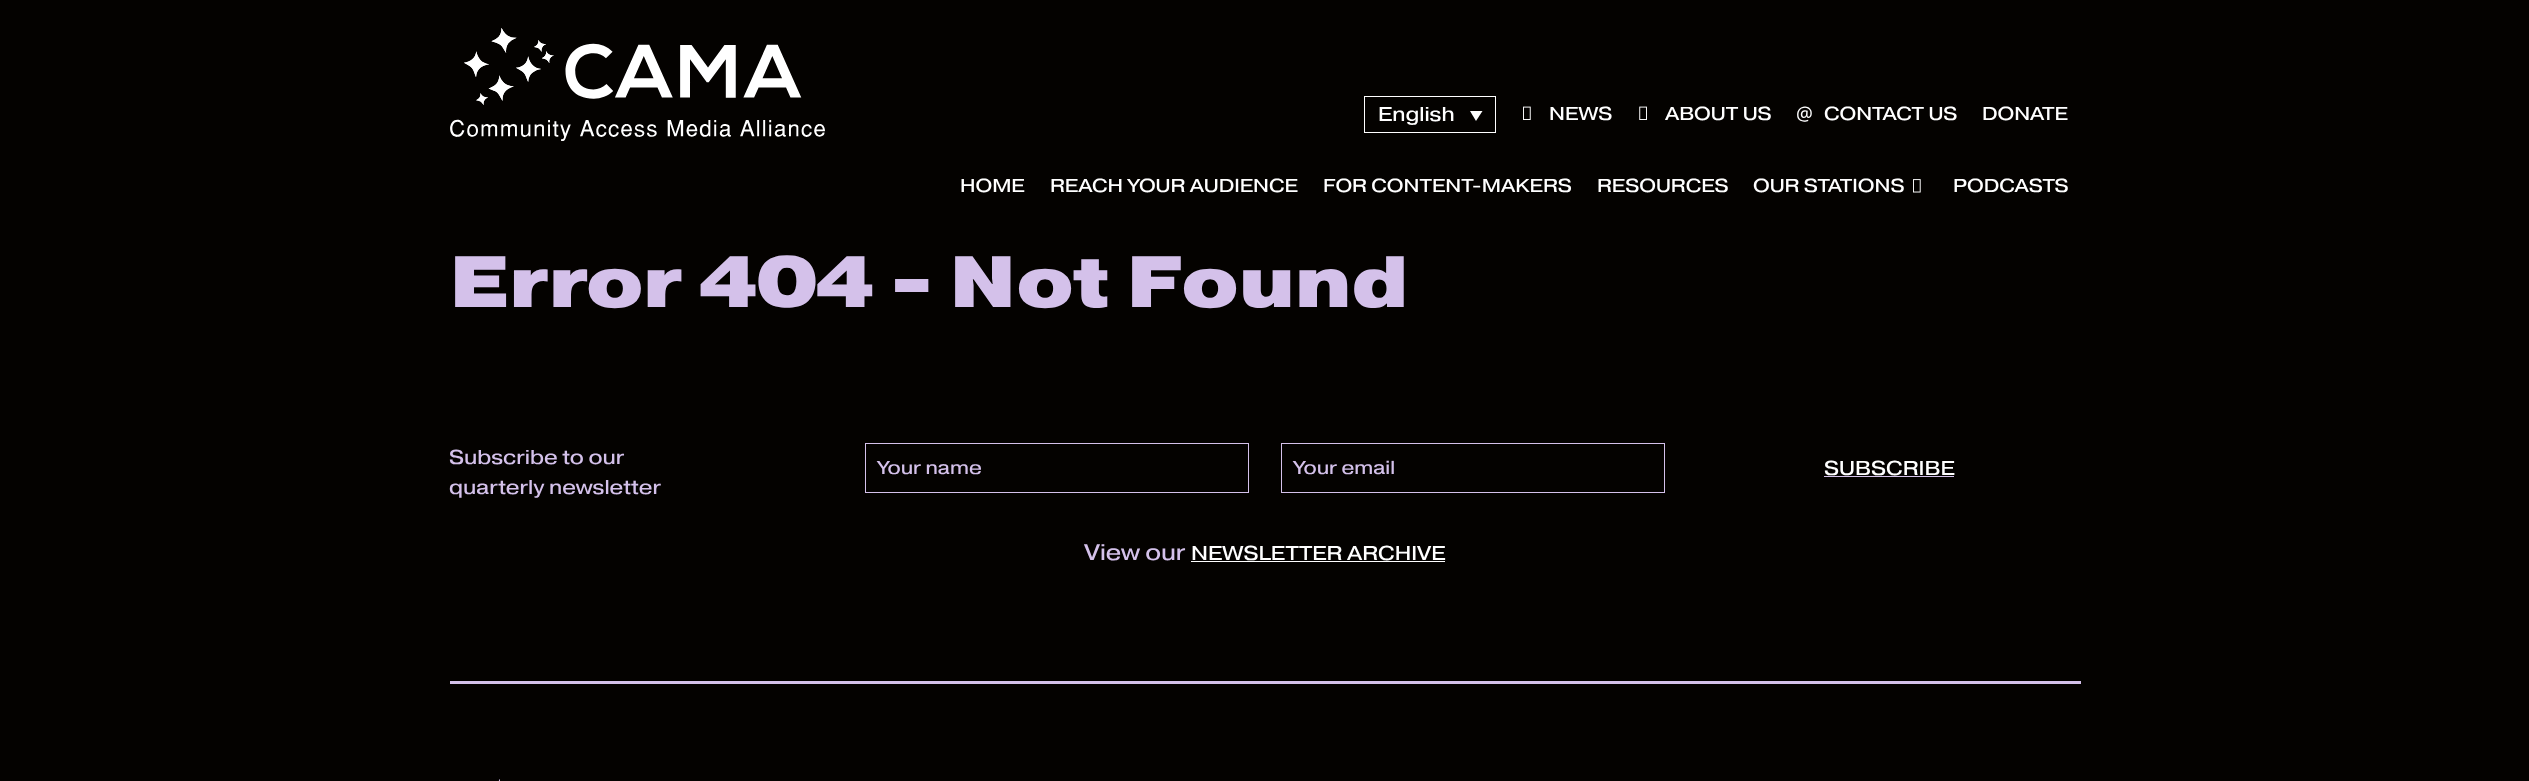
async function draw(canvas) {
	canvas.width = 2529;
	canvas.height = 781;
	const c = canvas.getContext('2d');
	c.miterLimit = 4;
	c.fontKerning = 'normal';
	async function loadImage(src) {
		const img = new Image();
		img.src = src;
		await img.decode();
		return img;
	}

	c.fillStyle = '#040200';
	c.fillRect(0, 0, 2529, 781);
	c.drawImage(await loadImage('img1.png'), 450, 28, 375, 113);
	c.strokeStyle = '#fff';
	c.strokeRect(1364.5, 96.5, 131, 36);
	c.font = '20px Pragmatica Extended';
	c.fillStyle = '#fff';
	c.fillText('English', 1378, 121);
	c.beginPath();
	c.moveTo(1470, 111);
	c.lineTo(1482.5, 111);
	c.lineTo(1476, 121);
	c.closePath();
	c.fill();
	c.drawImage(await loadImage('img2.png'), 1523, 106, 8, 14);
	c.font = '18.75px Pragmatica Extended';
	c.fillText('NEWS', 1549, 120);
	c.drawImage(await loadImage('img3.png'), 1639, 106, 8, 14);
	c.fillText('ABOUT US', 1665, 120);
	c.font = '18.75px Noto Sans';
	c.fillText('@', 1796, 120);
	c.font = '18.75px Pragmatica Extended';
	for (const [text, x, y] of [
		['CONTACT US', 1824, 120],
		['DONATE', 1982, 120],
		['HOME', 960, 192],
		['REACH YOUR AUDIENCE', 1050, 192],
		['FOR CONTENT-MAKERS', 1323, 192],
		['RESOURCES', 1597, 192],
		['OUR STATIONS', 1753, 192],
	]) {
		c.fillText(text, x, y);
	}
	c.drawImage(await loadImage('img4.png'), 1913, 179, 8, 14);
	c.fillText('PODCASTS', 1953, 192);
	c.font = '900 72.5px Pragmatica Extended';
	c.fillStyle = '#d4c1ea';
	c.fillText('Error 404 - Not Found', 449, 307);
	c.fillRect(450, 681, 1631, 3);
	c.font = '20px Pragmatica Extended';
	c.fillText('Subscribe to our', 449, 464);
	c.fillText('quarterly newsletter', 449, 494);
	c.strokeStyle = '#d4c1ea';
	c.strokeRect(865.5, 443.5, 383, 49);
	c.font = '18.75px Pragmatica Extended';
	c.fillText('Your name', 877, 474);
	c.strokeRect(1281.5, 443.5, 383, 49);
	c.fillText('Your email', 1293, 474);
	c.font = '20px Pragmatica Extended';
	c.fillStyle = '#fff';
	c.fillText('SUBSCRIBE', 1824, 475);
	c.fillStyle = '#d4c1ea';
	c.fillRect(1824, 476, 130, 1);
	c.font = '22.5px Pragmatica Extended';
	c.fillText('View our', 1084, 560);
	c.font = '20px Pragmatica Extended';
	c.fillStyle = '#fff';
	c.fillText('NEWSLETTER ARCHIVE', 1191, 560);
	c.fillRect(1191, 561, 254, 1);
	c.drawImage(await loadImage('img5.png'), 498, 779, 2, 2);
}

draw(document.querySelector('canvas'));
